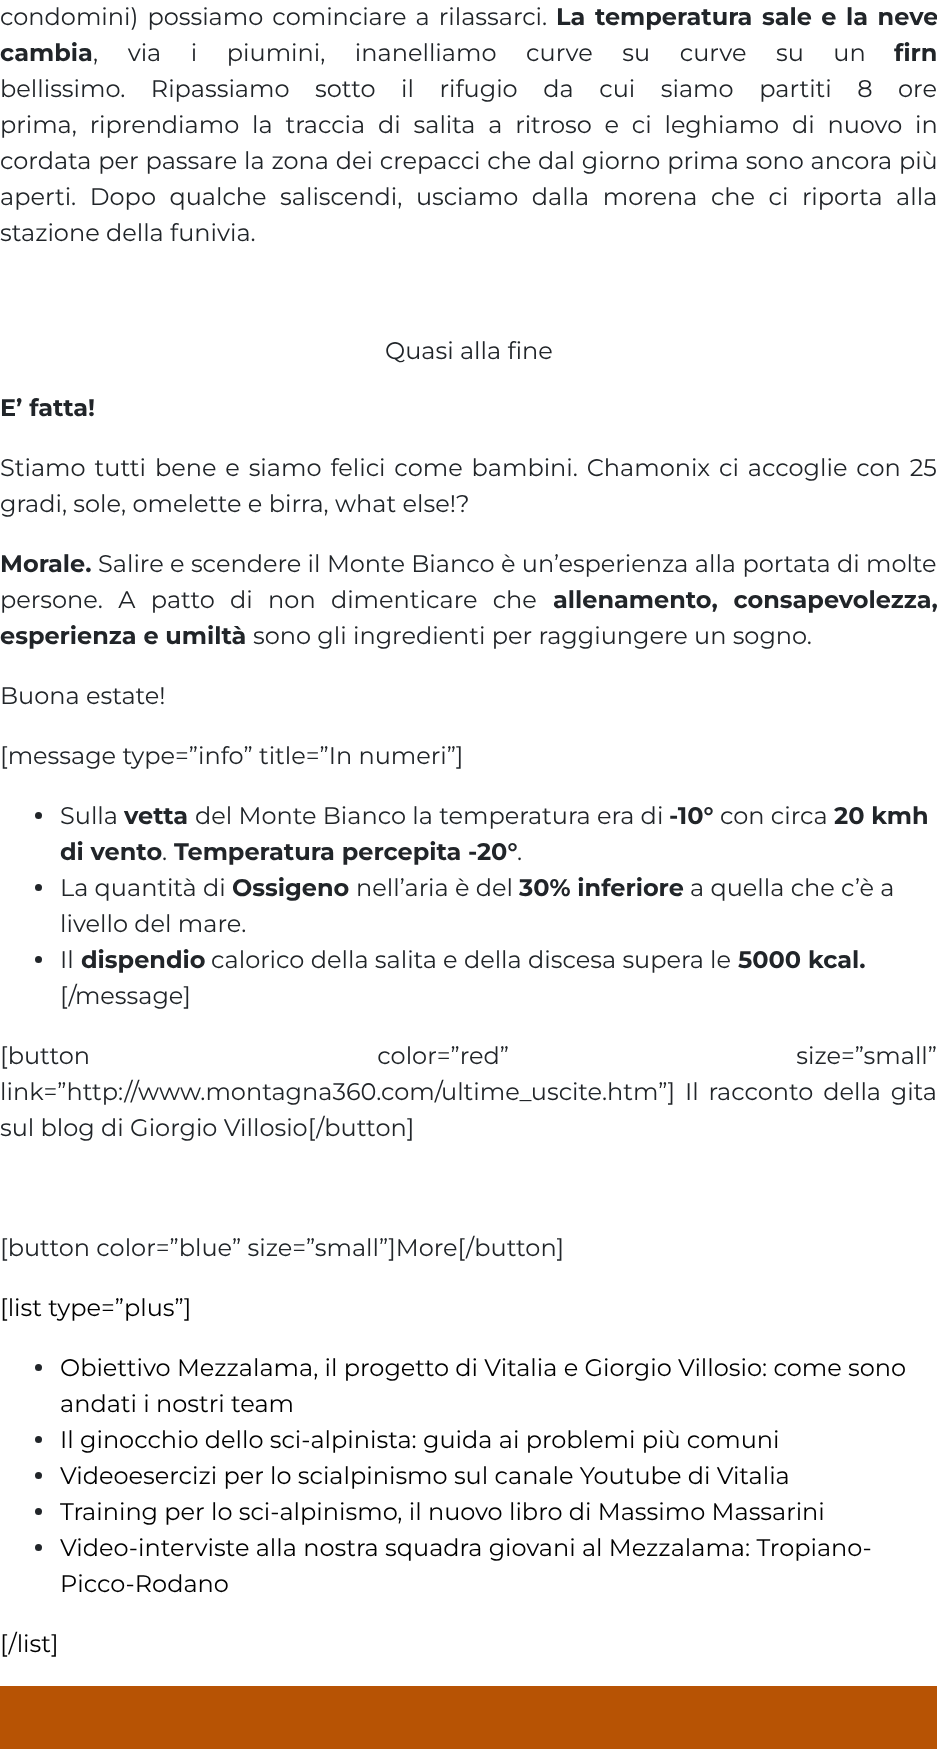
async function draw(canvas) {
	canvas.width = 937;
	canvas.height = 1749;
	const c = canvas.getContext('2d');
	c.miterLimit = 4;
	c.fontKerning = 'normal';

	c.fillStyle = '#fff';
	c.fillRect(0, 0, 937, 1749);
	c.wordSpacing = '2.75px';
	c.font = '24px Montserrat';
	c.fillStyle = '#212529';
	c.fillText('condomini) possiamo cominciare a rilassarci.', 0, 25);
	c.font = 'bold 24px Montserrat';
	c.fillText('La temperatura sale e la neve', 556, 25);
	c.wordSpacing = '0px';
	c.fillText('cambia', 0, 61);
	c.wordSpacing = '23.25px';
	c.font = '24px Montserrat';
	c.fillText(', via i piumini, inanelliamo curve su curve su un', 93, 61);
	c.wordSpacing = '0px';
	c.font = 'bold 24px Montserrat';
	c.fillText('firn', 894, 61);
	c.wordSpacing = '19.25px';
	c.font = '24px Montserrat';
	c.fillText('bellissimo. Ripassiamo sotto il rifugio da cui siamo partiti 8 ore', 0, 97);
	c.wordSpacing = '6.5px';
	c.fillText('prima, riprendiamo la traccia di salita a ritroso e ci leghiamo di nuovo in', 0, 133);
	c.wordSpacing = '0.5px';
	c.fillText('cordata per passare la zona dei crepacci che dal giorno prima sono ancora più', 0, 169);
	c.wordSpacing = '7.25px';
	c.fillText('aperti. Dopo qualche saliscendi, usciamo dalla morena che ci riporta alla', 0, 205);
	c.wordSpacing = '0px';
	c.fillText('stazione della funivia.', 0, 241);
	c.fillText('Quasi alla fine', 385, 359);
	c.font = 'bold 24px Montserrat';
	c.fillText('E’ fatta!', 0, 416);
	c.wordSpacing = '2.6px';
	c.font = '24px Montserrat';
	c.fillText('Stiamo tutti bene e siamo felici come bambini. Chamonix ci accoglie con 25', 0, 476);
	c.wordSpacing = '0px';
	c.fillText('gradi, sole, omelette e birra, what else!?', 0, 512);
	c.font = 'bold 24px Montserrat';
	c.fillText('Morale.', 0, 572);
	c.wordSpacing = '0.1px';
	c.font = '24px Montserrat';
	c.fillText('Salire e scendere il Monte Bianco è un’esperienza alla portata di molte', 98, 572);
	c.wordSpacing = '9px';
	c.fillText('persone. A patto di non dimenticare che', 0, 608);
	c.font = 'bold 24px Montserrat';
	c.fillText('allenamento, consapevolezza,', 553, 608);
	c.wordSpacing = '0px';
	c.fillText('esperienza e umiltà', 0, 644);
	c.font = '24px Montserrat';
	for (const [text, x, y] of [
		['sono gli ingredienti per raggiungere un sogno.', 253, 644],
		['Buona estate!', 0, 704],
		['[message type=”info” title=”In numeri”]', 0, 764],
	]) {
		c.fillText(text, x, y);
	}
	c.beginPath();
	c.arc(38.5, 815.5, 3.5, 0, 2 * Math.PI);
	c.fill();
	c.fillText('Sulla', 60, 824);
	c.font = 'bold 24px Montserrat';
	c.fillText('vetta', 124, 824);
	c.font = '24px Montserrat';
	c.fillText('del Monte Bianco la temperatura era di', 195, 824);
	c.font = 'bold 24px Montserrat';
	c.fillText('-10°', 669, 824);
	c.font = '24px Montserrat';
	c.fillText('con circa', 720, 824);
	c.font = 'bold 24px Montserrat';
	c.fillText('20 kmh', 834, 824);
	c.fillText('di vento', 60, 860);
	c.font = '24px Montserrat';
	c.fillText('.', 162, 860);
	c.font = 'bold 24px Montserrat';
	c.fillText('Temperatura percepita -20°', 174, 860);
	c.font = '24px Montserrat';
	c.fillText('.', 517, 860);
	c.beginPath();
	c.arc(38.5, 887.5, 3.5, 0, 2 * Math.PI);
	c.fill();
	c.fillText('La quantità di', 60, 896);
	c.font = 'bold 24px Montserrat';
	c.fillText('Ossigeno', 232, 896);
	c.font = '24px Montserrat';
	c.fillText('nell’aria è del', 356, 896);
	c.font = 'bold 24px Montserrat';
	c.fillText('30% inferiore', 519, 896);
	c.font = '24px Montserrat';
	c.fillText('a quella che c’è a', 690, 896);
	c.fillText('livello del mare.', 60, 932);
	c.beginPath();
	c.arc(38.5, 959.5, 3.5, 0, 2 * Math.PI);
	c.fill();
	c.fillText('Il', 60, 968);
	c.font = 'bold 24px Montserrat';
	c.fillText('dispendio', 81, 968);
	c.font = '24px Montserrat';
	c.fillText('calorico della salita e della discesa supera le', 211, 968);
	c.font = 'bold 24px Montserrat';
	c.fillText('5000 kcal.', 738, 968);
	c.font = '24px Montserrat';
	c.fillText('[/message]', 60, 1004);
	c.wordSpacing = '281px';
	c.fillText('[button color=”red” size=”small”', 0, 1064);
	c.wordSpacing = '3.5px';
	c.fillText('link=”http://www.montagna360.com/ultime_uscite.htm”] Il racconto della gita', 0, 1100);
	c.wordSpacing = '0px';
	c.fillText('sul blog di Giorgio Villosio[/button]', 0, 1136);
	c.fillText('[button color=”blue” size=”small”]More[/button]', 0, 1256);
	c.fillStyle = '#000';
	c.fillText('[list type=”plus”]', 0, 1316);
	c.fillStyle = '#212529';
	c.beginPath();
	c.arc(38.5, 1367.5, 3.5, 0, 2 * Math.PI);
	c.fill();
	c.fillStyle = '#000';
	c.fillText('Obiettivo Mezzalama, il progetto di Vitalia e Giorgio Villosio: come sono', 60, 1376);
	c.fillText('andati i nostri team', 60, 1412);
	c.fillStyle = '#212529';
	c.beginPath();
	c.arc(38.5, 1439.5, 3.5, 0, 2 * Math.PI);
	c.fill();
	c.fillStyle = '#000';
	c.fillText('Il ginocchio dello sci-alpinista: guida ai problemi più comuni', 60, 1448);
	c.fillStyle = '#212529';
	c.beginPath();
	c.arc(38.5, 1475.5, 3.5, 0, 2 * Math.PI);
	c.fill();
	c.fillStyle = '#000';
	c.fillText('Videoesercizi per lo scialpinismo sul canale Youtube di Vitalia', 60, 1484);
	c.fillStyle = '#212529';
	c.beginPath();
	c.arc(38.5, 1511.5, 3.5, 0, 2 * Math.PI);
	c.fill();
	c.fillStyle = '#000';
	c.fillText('Training per lo sci-alpinismo, il nuovo libro di Massimo Massarini', 60, 1520);
	c.fillStyle = '#212529';
	c.beginPath();
	c.arc(38.5, 1547.5, 3.5, 0, 2 * Math.PI);
	c.fill();
	c.fillStyle = '#000';
	for (const [text, x, y] of [
		['Video-interviste alla nostra squadra giovani al Mezzalama: Tropiano-', 60, 1556],
		['Picco-Rodano', 60, 1592],
		['[/list]', 0, 1652],
	]) {
		c.fillText(text, x, y);
	}
	c.fillStyle = '#b75304';
	c.fillRect(0, 1686, 937, 63);
}

draw(document.querySelector('canvas'));
